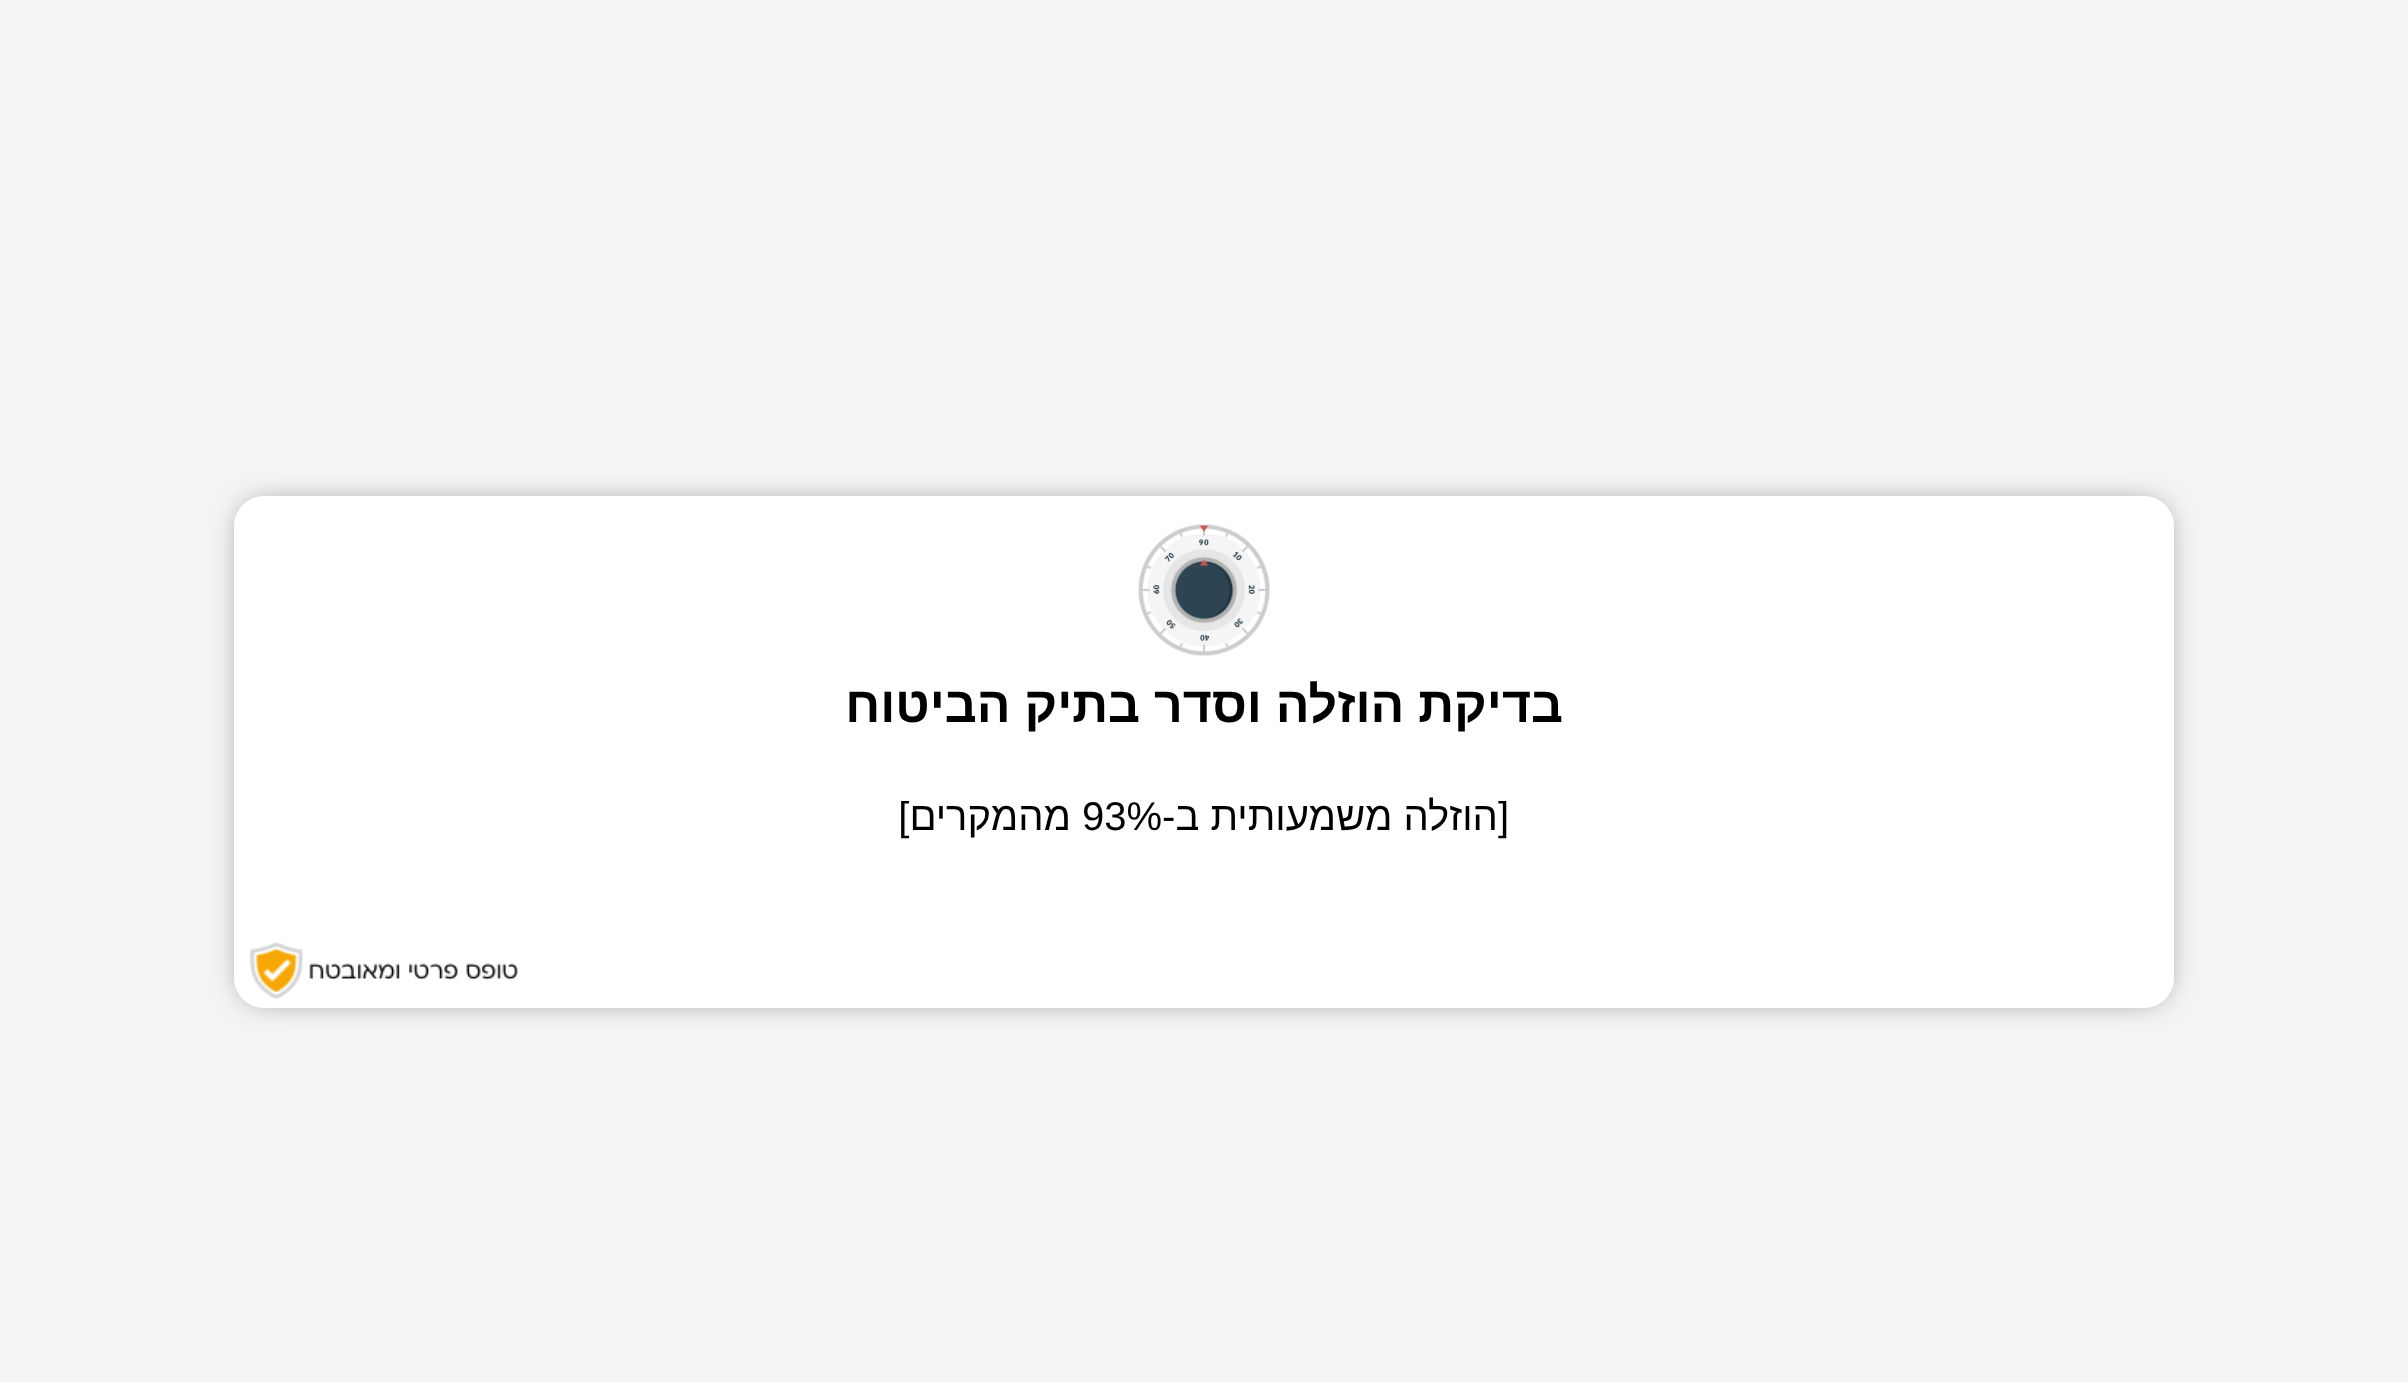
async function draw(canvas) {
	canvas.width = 2408;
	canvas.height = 1382;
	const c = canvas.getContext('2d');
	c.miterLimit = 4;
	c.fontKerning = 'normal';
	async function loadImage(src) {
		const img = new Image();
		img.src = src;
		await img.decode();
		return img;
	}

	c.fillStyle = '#f4f4f4';
	c.fillRect(0, 0, 2408, 1382);
	c.fillStyle = '#00000080';
	c.filter = 'blur(15px)';
	c.beginPath();
	c.roundRect(244, 506, 1920, 492, 20);
	c.fill();
	c.filter = 'none';
	c.fillStyle = '#fff';
	c.beginPath();
	c.roundRect(234, 496, 1940, 512, 30);
	c.fill();
	c.drawImage(await loadImage('img1.png'), 1138, 524, 132, 132);
	c.direction = 'rtl';
	c.font = 'bold 50px Liberation Sans';
	c.fillStyle = '#000';
	c.fillText('בדיקת הוזלה וסדר בתיק הביטוח', 1563, 722);
	c.font = '40px Liberation Sans';
	c.fillText('[הוזלה משמעותית ב-', 1509, 830);
	c.direction = 'ltr';
	c.fillText('93%', 1082, 830);
	c.direction = 'rtl';
	c.fillText('מהמקרים]', 1071, 830);
	c.drawImage(await loadImage('img2.png'), 249, 942, 269, 58);
}

draw(document.querySelector('canvas'));
